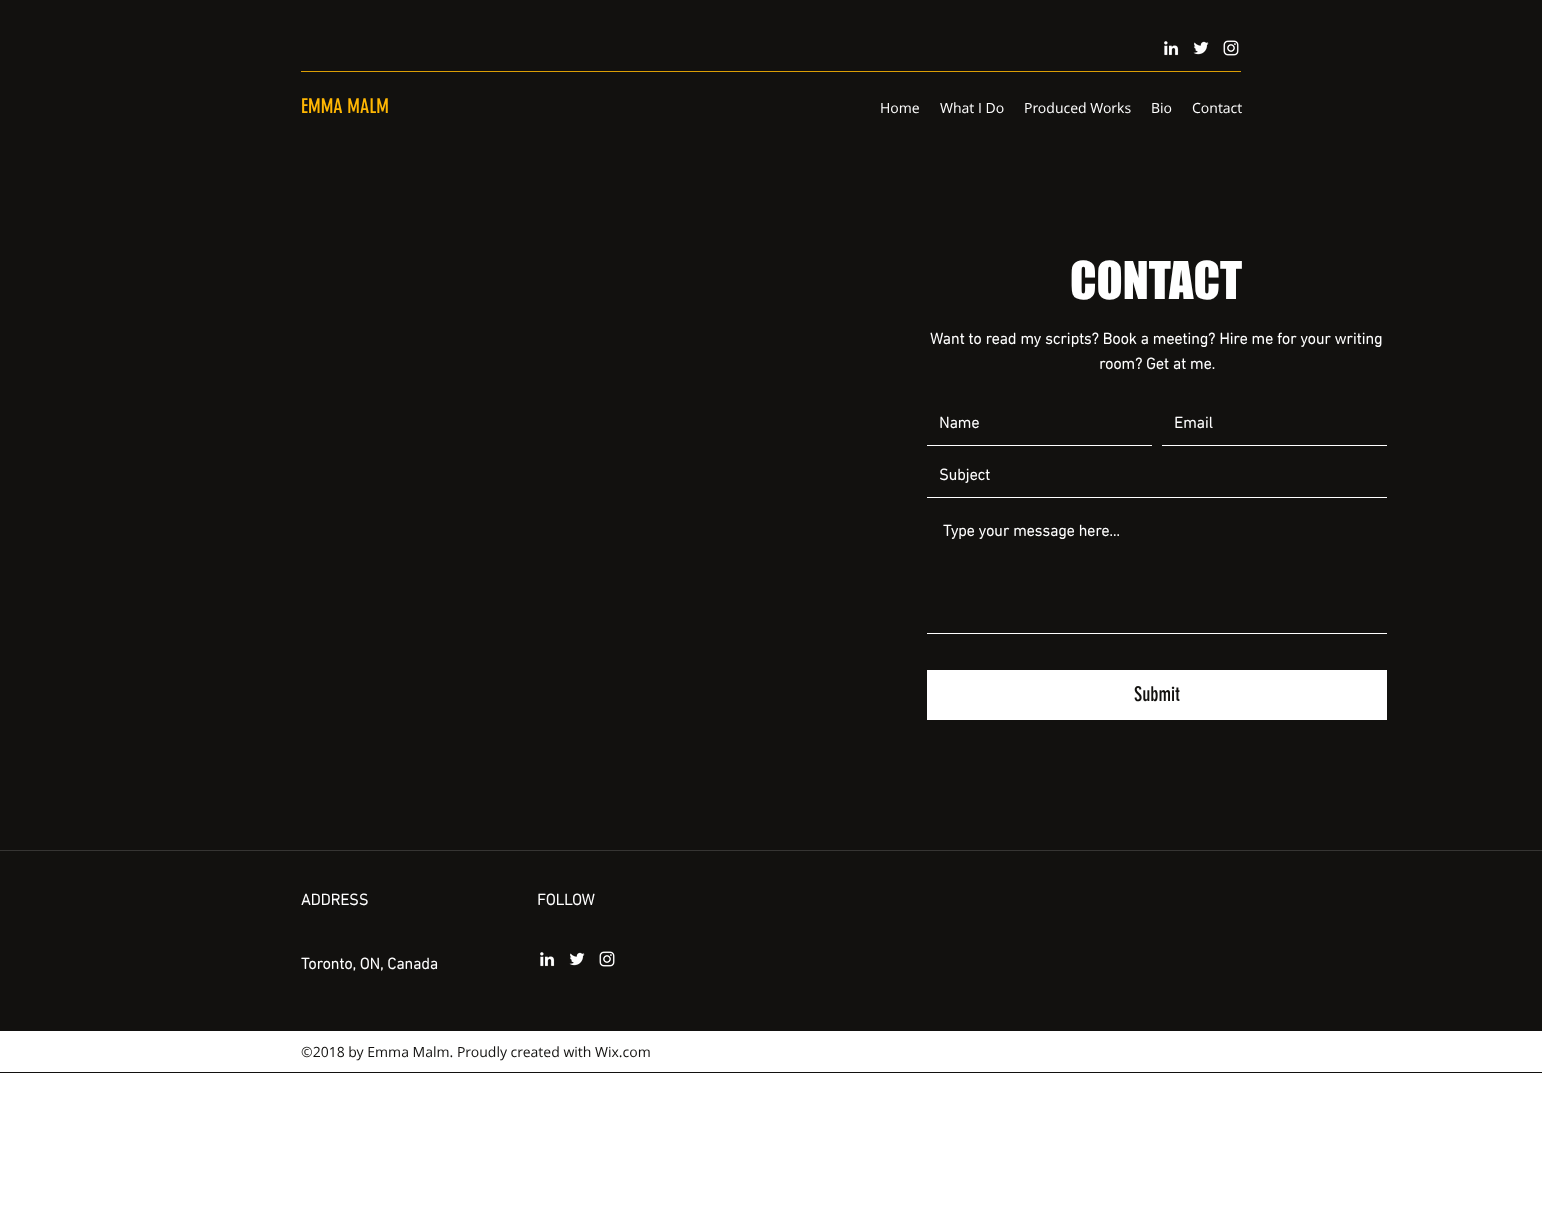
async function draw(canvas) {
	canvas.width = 1542;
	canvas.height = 1216;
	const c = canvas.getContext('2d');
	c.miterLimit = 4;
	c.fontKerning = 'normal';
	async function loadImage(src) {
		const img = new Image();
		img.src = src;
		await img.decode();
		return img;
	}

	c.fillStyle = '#fff';
	c.fillRect(0, 0, 1542, 1216);
	c.fillStyle = '#12110f';
	c.fillRect(0, 0, 1542, 850);
	c.drawImage(await loadImage('img1.png'), 1164, 41, 15, 15);
	c.drawImage(await loadImage('img2.png'), 1193, 41, 16, 14);
	c.drawImage(await loadImage('img3.png'), 1223, 40, 16, 16);
	c.fillStyle = '#db9e05';
	c.fillRect(301, 71, 940, 1);
	c.font = '20px "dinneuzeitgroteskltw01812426"';
	c.fillStyle = '#ffb703';
	c.fillText('EMMA MALM', 301, 113);
	c.font = '14px Open Sans';
	c.fillStyle = '#fff';
	for (const [text, x, y] of [
		['Home', 880, 113],
		['What I Do', 940, 113],
		['Produced Works', 1024, 113],
		['Bio', 1151, 113],
		['Contact', 1192, 113],
	]) {
		c.fillText(text, x, y);
	}
	c.font = '48px "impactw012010"';
	c.fillText('CONTACT', 1070, 299);
	c.font = 'bold 16px "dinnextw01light"';
	c.fillText('Want to read my scripts? Book a meeting? Hire me for your writing', 930, 344);
	c.fillText('room? Get at me.', 1099, 369);
	c.fillRect(927, 445, 225, 1);
	c.fillText('Name', 939, 428);
	c.fillRect(1162, 445, 225, 1);
	c.fillText('Email', 1174, 428);
	c.fillRect(927, 497, 460, 1);
	c.fillText('Subject', 939, 480);
	c.fillRect(927, 633, 460, 1);
	c.fillText('Type your message here...', 943, 536);
	c.fillRect(927, 670, 460, 50);
	c.font = '20px "dinneuzeitgroteskltw01812426"';
	c.fillStyle = '#12110f';
	c.fillText('Submit', 1134, 701);
	c.fillRect(0, 851, 1542, 222);
	c.fillStyle = '#363533';
	c.fillRect(0, 850, 1542, 1);
	c.font = 'bold 16px "dinnextw01light"';
	c.fillStyle = '#fff';
	for (const [text, x, y] of [
		['ADDRESS', 301, 905],
		['FOLLOW', 537, 905],
		['Toronto, ON, Canada', 301, 969],
	]) {
		c.fillText(text, x, y);
	}
	c.drawImage(await loadImage('img1.png'), 540, 952, 15, 15);
	c.drawImage(await loadImage('img2.png'), 569, 952, 16, 14);
	c.drawImage(await loadImage('img3.png'), 599, 951, 16, 16);
	c.fillRect(0, 1031, 1542, 41);
	c.font = '14px Open Sans';
	c.fillStyle = '#12110f';
	c.fillText('©2018 by Emma Malm. Proudly created with Wix.com', 301, 1057);
}

draw(document.querySelector('canvas'));
